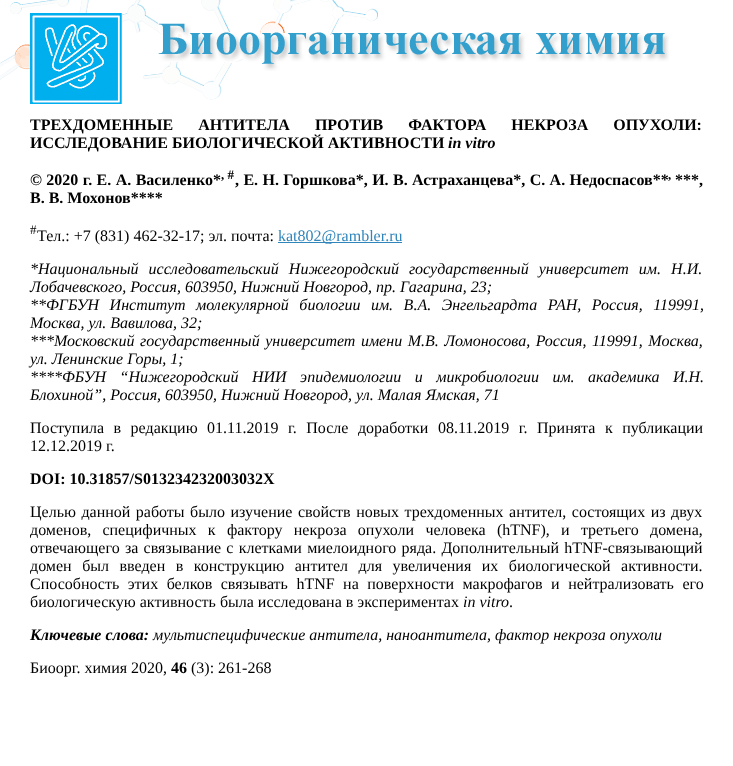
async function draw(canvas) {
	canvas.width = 733;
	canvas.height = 766;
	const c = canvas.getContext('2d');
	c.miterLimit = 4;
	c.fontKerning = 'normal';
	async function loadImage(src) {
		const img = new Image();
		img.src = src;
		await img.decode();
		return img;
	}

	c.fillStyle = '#fff';
	c.fillRect(0, 0, 733, 766);
	c.drawImage(await loadImage('img1.png'), 0, 0, 378, 100);
	c.drawImage(await loadImage('img2.png'), 30, 13, 92, 91);
	c.drawImage(await loadImage('img3.png'), 158, 23, 511, 48);
	c.wordSpacing = '21px';
	c.font = 'bold 16px Liberation Serif';
	c.fillStyle = '#000';
	c.fillText('ТРЕХДОМЕННЫЕ АНТИТЕЛА ПРОТИВ ФАКТОРА НЕКРОЗА ОПУХОЛИ:', 30, 130);
	c.wordSpacing = '0px';
	c.fillText('ИССЛЕДОВАНИЕ БИОЛОГИЧЕСКОЙ АКТИВНОСТИ', 30, 148);
	c.font = 'italic bold 16px Liberation Serif';
	c.fillText('in vitro', 448, 148);
	c.wordSpacing = '0.4px';
	c.font = 'bold 16px Liberation Serif';
	c.fillText('© 2020 г. Е. А. Василенко*', 30, 185);
	c.wordSpacing = '0px';
	c.font = 'bold 13px Liberation Serif';
	c.fillText(', #', 221, 179);
	c.wordSpacing = '0.4px';
	c.font = 'bold 16px Liberation Serif';
	c.fillText(', Е. Н. Горшкова*, И. В. Астраханцева*, С. А. Недоспасов**', 235, 185);
	c.wordSpacing = '0px';
	c.font = 'bold 13px Liberation Serif';
	c.fillText(',', 668, 179);
	c.font = 'bold 16px Liberation Serif';
	c.fillText('***,', 675, 185);
	c.fillText('В. В. Мохонов****', 30, 203);
	c.font = '13px Liberation Serif';
	c.fillText('#', 30, 234);
	c.font = '16px Liberation Serif';
	c.fillText('Тел.: +7 (831) 462-32-17; эл. почта:', 37, 241);
	c.fillStyle = '#3085ba';
	c.fillRect(278, 242, 124, 1);
	c.fillText('kat802@rambler.ru', 278, 241);
	c.wordSpacing = '6px';
	c.font = 'italic 16px Liberation Serif';
	c.fillStyle = '#000';
	c.fillText('*Национальный исследовательский Нижегородский государственный университет им. Н.И.', 30, 274);
	c.wordSpacing = '0px';
	c.fillText('Лобачевского, Россия, 603950, Нижний Новгород, пр. Гагарина, 23;', 30, 292);
	c.wordSpacing = '6.5px';
	c.fillText('**ФГБУН Институт молекулярной биологии им. В.А. Энгельгардта РАН, Россия, 119991,', 30, 310);
	c.wordSpacing = '0px';
	c.fillText('Москва, ул. Вавилова, 32;', 30, 328);
	c.wordSpacing = '1.5px';
	c.fillText('***Московский государственный университет имени М.В. Ломоносова, Россия, 119991, Москва,', 30, 346);
	c.wordSpacing = '0px';
	c.fillText('ул. Ленинские Горы, 1;', 30, 364);
	c.wordSpacing = '9.5px';
	c.fillText('****ФБУН “Нижегородский НИИ эпидемиологии и микробиологии им. академика И.Н.', 30, 382);
	c.wordSpacing = '0px';
	c.fillText('Блохиной”, Россия, 603950, Нижний Новгород, ул. Малая Ямская, 71', 30, 400);
	c.wordSpacing = '5.5px';
	c.font = '16px Liberation Serif';
	c.fillText('Поступила в редакцию 01.11.2019 г. После доработки 08.11.2019 г. Принята к публикации', 30, 433);
	c.wordSpacing = '0px';
	c.fillText('12.12.2019 г.', 30, 451);
	c.font = 'bold 16px Liberation Serif';
	c.fillText('DOI: 10.31857/S013234232003032X', 30, 484);
	c.wordSpacing = '1.5px';
	c.font = '16px Liberation Serif';
	c.fillText('Целью данной работы было изучение свойств новых трехдоменных антител, состоящих из двух', 30, 517);
	c.wordSpacing = '7.25px';
	c.fillText('доменов, специфичных к фактору некроза опухоли человека (hTNF), и третьего домена,', 30, 535);
	c.wordSpacing = '1.25px';
	c.fillText('отвечающего за связывание с клетками миелоидного ряда. Дополнительный hTNF-связывающий', 30, 553);
	c.wordSpacing = '6.5px';
	c.fillText('домен был введен в конcтрукцию антител для увеличения их биологической активности.', 30, 571);
	c.wordSpacing = '4.5px';
	c.fillText('Способность этих белков связывать hTNF на поверхности макрофагов и нейтрализовать его', 30, 589);
	c.wordSpacing = '0px';
	c.fillText('биологическую активность была исследована в экспериментах', 30, 607);
	c.font = 'italic 16px Liberation Serif';
	c.fillText('in vitro', 463, 607);
	c.font = '16px Liberation Serif';
	c.fillText('.', 509, 607);
	c.font = 'italic bold 16px Liberation Serif';
	c.fillText('Ключевые слова:', 30, 640);
	c.font = 'italic 16px Liberation Serif';
	c.fillText('мультиспецифические антитела, наноантитела, фактор некроза опухоли', 153, 640);
	c.font = '16px Liberation Serif';
	c.fillText('Биоорг. химия 2020,', 30, 673);
	c.font = 'bold 16px Liberation Serif';
	c.fillText('46', 171, 673);
	c.font = '16px Liberation Serif';
	c.fillText('(3): 261-268', 191, 673);
}

draw(document.querySelector('canvas'));
